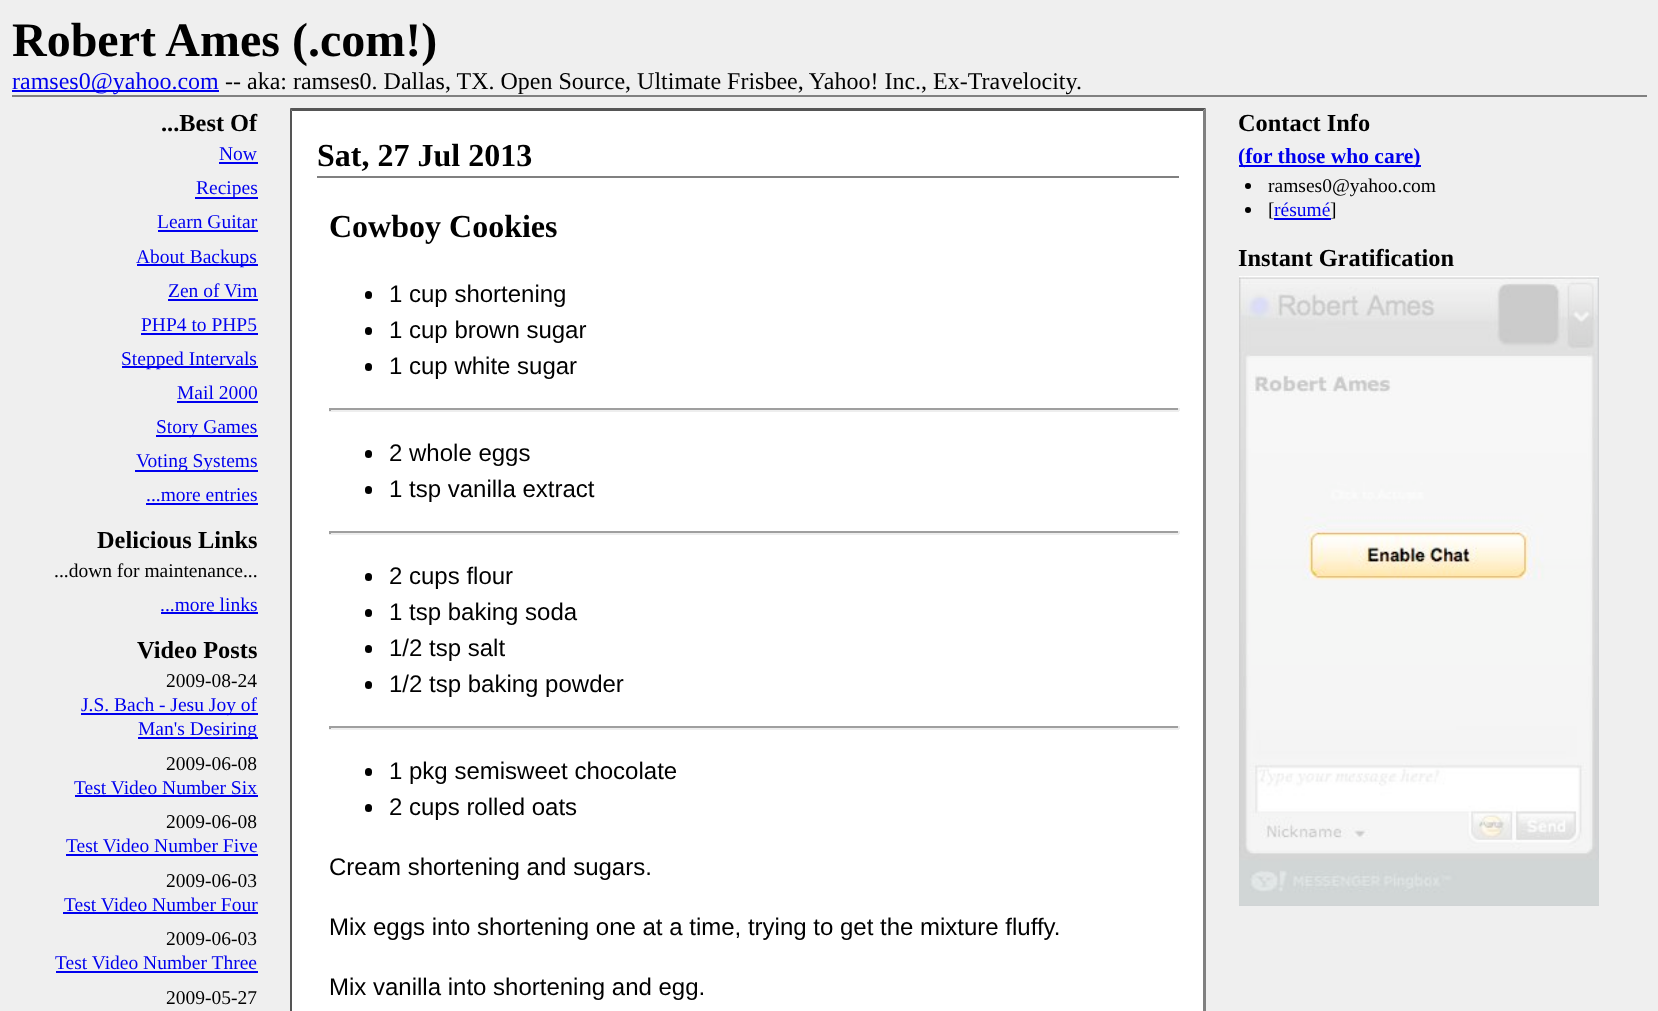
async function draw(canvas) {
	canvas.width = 1658;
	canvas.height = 1011;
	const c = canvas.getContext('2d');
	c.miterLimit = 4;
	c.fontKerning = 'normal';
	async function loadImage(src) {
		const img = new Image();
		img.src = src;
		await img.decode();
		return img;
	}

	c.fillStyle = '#efefef';
	c.fillRect(0, 0, 1658, 1011);
	c.fillStyle = '#808080';
	c.fillRect(12, 95, 1635, 2);
	c.font = 'bold 48px Liberation Serif';
	c.fillStyle = '#000';
	c.fillText('Robert Ames (.com!)', 12, 56);
	c.fillStyle = '#00e';
	c.fillRect(12, 90, 207, 2);
	c.font = '24px Liberation Serif';
	c.fillText('ramses0@yahoo.com', 12, 89);
	c.fillStyle = '#000';
	c.fillText('-- aka: ramses0. Dallas, TX. Open Source, Ultimate Frisbee, Yahoo! Inc., Ex-Travelocity.', 225, 89);
	c.font = 'bold 24.4px Liberation Serif';
	c.fillText('...Best Of', 161, 131);
	c.font = '19.5px Liberation Serif';
	c.fillStyle = '#00e';
	c.fillText('Now', 219, 160);
	c.fillRect(219, 162, 39, 2);
	c.fillRect(195, 197, 63, 2);
	c.fillText('Recipes', 196, 194);
	c.fillText('Learn Guitar', 157, 228);
	c.fillRect(158, 230, 100, 2);
	c.fillRect(137, 264, 121, 2);
	c.fillText('About Backups', 136, 263);
	c.fillText('Zen of Vim', 168, 297);
	c.fillRect(168, 299, 90, 2);
	c.fillText('PHP4 to PHP5', 141, 331);
	c.fillRect(141, 333, 117, 2);
	c.fillRect(122, 366, 136, 2);
	c.fillText('Stepped Intervals', 121, 365);
	c.fillText('Mail 2000', 177, 399);
	c.fillRect(177, 401, 81, 2);
	c.fillRect(156, 435, 102, 2);
	c.fillText('Story Games', 156, 433);
	c.fillRect(135, 470, 123, 2);
	c.fillText('Voting Systems', 136, 467);
	c.fillText('...more entries', 146, 501);
	c.fillRect(146, 503, 112, 2);
	c.font = 'bold 24.4px Liberation Serif';
	c.fillStyle = '#000';
	c.fillText('Delicious Links', 97, 548);
	c.font = '19.5px Liberation Serif';
	c.fillText('...down for maintenance...', 54, 577);
	c.fillStyle = '#00e';
	c.fillText('...more links', 160, 611);
	c.fillRect(161, 612, 97, 2);
	c.font = 'bold 24.4px Liberation Serif';
	c.fillStyle = '#000';
	c.fillText('Video Posts', 137, 658);
	c.font = '19.5px Liberation Serif';
	c.fillText('2009-08-24', 166, 687);
	c.fillStyle = '#00e';
	c.fillRect(81, 713, 177, 2);
	c.fillText('J.S. Bach - Jesu Joy of', 81, 711);
	c.fillRect(138, 737, 120, 2);
	c.fillText('Man\'s Desiring', 138, 735);
	c.fillStyle = '#000';
	c.fillText('2009-06-08', 166, 770);
	c.fillStyle = '#00e';
	c.fillText('Test Video Number Six', 74, 794);
	c.fillRect(75, 795, 183, 2);
	c.fillStyle = '#000';
	c.fillText('2009-06-08', 166, 828);
	c.fillStyle = '#00e';
	c.fillText('Test Video Number Five', 66, 852);
	c.fillRect(66, 854, 192, 2);
	c.fillStyle = '#000';
	c.fillText('2009-06-03', 166, 887);
	c.fillStyle = '#00e';
	c.fillText('Test Video Number Four', 64, 911);
	c.fillRect(63, 912, 195, 2);
	c.fillStyle = '#000';
	c.fillText('2009-06-03', 166, 945);
	c.fillStyle = '#00e';
	c.fillText('Test Video Number Three', 55, 969);
	c.fillRect(56, 971, 202, 2);
	c.fillStyle = '#000';
	c.fillText('2009-05-27', 166, 1004);
	c.fillStyle = '#fff';
	c.fillRect(290, 108, 916, 903);
	c.fillStyle = '#555';
	c.beginPath();
	c.moveTo(290, 108);
	c.lineTo(1206, 108);
	c.lineTo(1203, 111);
	c.lineTo(292, 111);
	c.closePath();
	c.fill();
	c.fillStyle = '#808080';
	c.beginPath();
	c.moveTo(1206, 108);
	c.lineTo(1206, 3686);
	c.lineTo(1203, 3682);
	c.lineTo(1203, 111);
	c.closePath();
	c.fill();
	c.fillStyle = '#555';
	c.beginPath();
	c.moveTo(290, 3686);
	c.lineTo(290, 108);
	c.lineTo(292, 111);
	c.lineTo(292, 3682);
	c.closePath();
	c.fill();
	c.fillStyle = '#808080';
	c.fillRect(317, 176, 862, 2);
	c.font = 'bold 32px Liberation Serif';
	c.fillStyle = '#000';
	c.fillText('Sat, 27 Jul 2013', 317, 166);
	c.fillText('Cowboy Cookies', 329, 237);
	c.beginPath();
	c.roundRect(365, 291, 7, 8, 3.5);
	c.fill();
	c.font = '24px Liberation Sans';
	c.fillText('1 cup shortening', 389, 302);
	c.beginPath();
	c.roundRect(365, 327, 7, 8, 3.5);
	c.fill();
	c.fillText('1 cup brown sugar', 389, 338);
	c.beginPath();
	c.roundRect(365, 363, 7, 8, 3.5);
	c.fill();
	c.fillText('1 cup white sugar', 389, 374);
	for (const [x, y, w, h, color] of [
		[329, 408, 850, 2, '#9f9f9f'],
		[1178, 408, 2, 3, '#eee'],
		[329, 410, 850, 2, '#eee'],
		[329, 408, 2, 3, '#9f9f9f'],
	]) {
		c.fillStyle = color;
		c.fillRect(x, y, w, h);
	}
	c.fillStyle = '#000';
	c.beginPath();
	c.roundRect(365, 450, 7, 8, 3.5);
	c.fill();
	c.fillText('2 whole eggs', 389, 461);
	c.beginPath();
	c.roundRect(365, 486, 7, 8, 3.5);
	c.fill();
	c.fillText('1 tsp vanilla extract', 389, 497);
	for (const [x, y, w, h, color] of [
		[329, 531, 850, 2, '#9f9f9f'],
		[1178, 531, 2, 3, '#eee'],
		[329, 533, 850, 2, '#eee'],
		[329, 531, 2, 3, '#9f9f9f'],
	]) {
		c.fillStyle = color;
		c.fillRect(x, y, w, h);
	}
	c.fillStyle = '#000';
	c.beginPath();
	c.roundRect(365, 573, 7, 8, 3.5);
	c.fill();
	c.fillText('2 cups flour', 389, 584);
	c.beginPath();
	c.roundRect(365, 609, 7, 8, 3.5);
	c.fill();
	c.fillText('1 tsp baking soda', 389, 620);
	c.beginPath();
	c.roundRect(365, 645, 7, 8, 3.5);
	c.fill();
	c.fillText('1/2 tsp salt', 389, 656);
	c.beginPath();
	c.roundRect(365, 681, 7, 8, 3.5);
	c.fill();
	c.fillText('1/2 tsp baking powder', 389, 692);
	for (const [x, y, w, h, color] of [
		[329, 726, 850, 2, '#9f9f9f'],
		[1178, 726, 2, 3, '#eee'],
		[329, 728, 850, 2, '#eee'],
		[329, 726, 2, 3, '#9f9f9f'],
	]) {
		c.fillStyle = color;
		c.fillRect(x, y, w, h);
	}
	c.fillStyle = '#000';
	c.beginPath();
	c.roundRect(365, 768, 7, 8, 3.5);
	c.fill();
	c.fillText('1 pkg semisweet chocolate', 389, 779);
	c.beginPath();
	c.roundRect(365, 804, 7, 8, 3.5);
	c.fill();
	for (const [text, x, y] of [
		['2 cups rolled oats', 389, 815],
		['Cream shortening and sugars.', 329, 875],
		['Mix eggs into shortening one at a time, trying to get the mixture fluffy.', 329, 935],
		['Mix vanilla into shortening and egg.', 329, 995],
	]) {
		c.fillText(text, x, y);
	}
	c.font = 'bold 24.4px Liberation Serif';
	c.fillText('Contact Info', 1238, 131);
	c.fillStyle = '#00e';
	c.fillRect(1239, 165, 182, 2);
	c.font = 'bold 21.5px Liberation Serif';
	c.fillText('(for those who care)', 1238, 163);
	c.fillStyle = '#000';
	c.beginPath();
	c.arc(1248, 186, 3, 0, 2 * Math.PI);
	c.fill();
	c.font = '19.5px Liberation Serif';
	c.fillText('ramses0@yahoo.com', 1268, 192);
	c.beginPath();
	c.arc(1248, 210, 3, 0, 2 * Math.PI);
	c.fill();
	c.fillText('[', 1268, 216);
	c.fillStyle = '#00e';
	c.fillText('résumé', 1274, 216);
	c.fillRect(1274, 218, 57, 2);
	c.fillStyle = '#000';
	c.fillText(']', 1330, 216);
	c.font = 'bold 24.4px Liberation Serif';
	c.fillText('Instant Gratification', 1238, 266);
	c.drawImage(await loadImage('img1.png'), 1239, 276, 360, 630);
}

draw(document.querySelector('canvas'));
